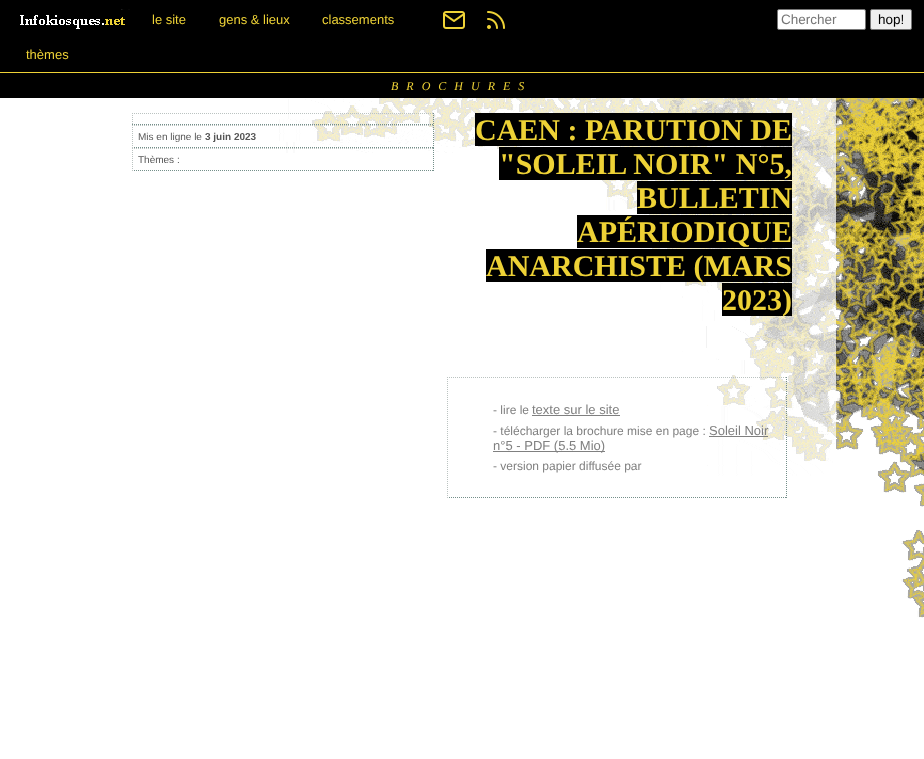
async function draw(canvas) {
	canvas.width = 924;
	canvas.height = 759;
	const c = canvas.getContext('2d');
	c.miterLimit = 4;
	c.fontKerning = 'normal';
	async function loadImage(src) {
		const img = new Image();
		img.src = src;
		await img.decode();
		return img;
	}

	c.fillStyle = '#fff';
	c.fillRect(0, 0, 924, 759);
	c.fillStyle = '#000';
	c.fillRect(0, 0, 924, 72);
	c.fillStyle = '#eed236';
	c.fillRect(0, 72, 924, 1);
	c.drawImage(await loadImage('img1.png'), 20, 9, 110, 20);
	c.font = '13px Liberation Sans';
	for (const [text, x, y] of [
		['le site', 152, 24],
		['gens & lieux', 219, 24],
		['classements', 322, 24],
		['thèmes', 26, 59],
	]) {
		c.fillText(text, x, y);
	}
	c.drawImage(await loadImage('img2.png'), 443, 11, 22, 18);
	c.drawImage(await loadImage('img3.png'), 487, 11, 18, 18);
	c.fillStyle = '#fff';
	c.beginPath();
	c.roundRect(777.5, 9.5, 88, 20, 1.5);
	c.fill();
	c.strokeStyle = '#767676';
	c.stroke();
	c.font = '13.5px Liberation Sans';
	c.fillStyle = '#757575';
	c.fillText('Chercher', 781, 24);
	c.fillStyle = '#efefef';
	c.beginPath();
	c.roundRect(870.5, 9.5, 41, 20, 1.5);
	c.fill();
	c.stroke();
	c.fillStyle = '#000';
	c.fillText('hop!', 878, 24);
	c.fillRect(0, 73, 924, 25);
	c.letterSpacing = '8px';
	c.font = 'italic 12px Liberation Serif';
	c.fillStyle = '#eed236';
	c.fillText('BROCHURES', 391, 90);
	c.drawImage(await loadImage('img4.png'), 279, 98, 645, 520);
	c.beginPath();
	c.moveTo(132, 113.5);
	c.lineTo(434, 113.5);
	c.strokeStyle = '#bbc3c1';
	c.setLineDash([1, 1]);
	c.stroke();
	c.beginPath();
	c.moveTo(433.5, 113);
	c.lineTo(433.5, 125);
	c.strokeStyle = '#748f8a';
	c.stroke();
	c.beginPath();
	c.moveTo(132, 124.5);
	c.lineTo(434, 124.5);
	c.stroke();
	c.beginPath();
	c.moveTo(132.5, 113);
	c.lineTo(132.5, 125);
	c.strokeStyle = '#bbc3c1';
	c.stroke();
	c.beginPath();
	c.moveTo(132, 125.5);
	c.lineTo(434, 125.5);
	c.stroke();
	c.beginPath();
	c.moveTo(433.5, 125);
	c.lineTo(433.5, 148);
	c.strokeStyle = '#748f8a';
	c.stroke();
	c.beginPath();
	c.moveTo(132, 147.5);
	c.lineTo(434, 147.5);
	c.stroke();
	c.beginPath();
	c.moveTo(132.5, 125);
	c.lineTo(132.5, 148);
	c.strokeStyle = '#bbc3c1';
	c.stroke();
	c.letterSpacing = '0px';
	c.font = '10px Liberation Sans';
	c.fillStyle = '#555';
	c.fillText('Mis en ligne le', 138, 140);
	c.font = 'bold 10px Liberation Sans';
	c.fillText('3 juin 2023', 205, 140);
	c.beginPath();
	c.moveTo(132, 148.5);
	c.lineTo(434, 148.5);
	c.stroke();
	c.beginPath();
	c.moveTo(433.5, 148);
	c.lineTo(433.5, 171);
	c.strokeStyle = '#748f8a';
	c.stroke();
	c.beginPath();
	c.moveTo(132, 170.5);
	c.lineTo(434, 170.5);
	c.stroke();
	c.beginPath();
	c.moveTo(132.5, 148);
	c.lineTo(132.5, 171);
	c.strokeStyle = '#bbc3c1';
	c.stroke();
	c.font = '10px Liberation Sans';
	c.fillText('Thèmes :', 138, 163);
	c.fillStyle = '#000';
	c.fillRect(475, 113, 317, 33);
	c.font = 'bold 30px Liberation Serif';
	c.fillStyle = '#eed236';
	c.fillText('CAEN : PARUTION DE', 475, 140);
	c.fillStyle = '#000';
	c.fillRect(499, 147, 293, 33);
	c.fillStyle = '#eed236';
	c.fillText('"SOLEIL NOIR" N°5,', 499, 174);
	c.fillStyle = '#000';
	c.fillRect(637, 181, 155, 33);
	c.fillStyle = '#eed236';
	c.fillText('BULLETIN', 637, 208);
	c.fillStyle = '#000';
	c.fillRect(577, 215, 215, 33);
	c.fillStyle = '#eed236';
	c.fillText('APÉRIODIQUE', 577, 242);
	c.fillStyle = '#000';
	c.fillRect(486, 249, 306, 33);
	c.fillStyle = '#eed236';
	c.fillText('ANARCHISTE (MARS', 486, 276);
	c.fillStyle = '#000';
	c.fillRect(722, 283, 70, 33);
	c.fillStyle = '#eed236';
	c.fillText('2023)', 722, 310);
	c.beginPath();
	c.moveTo(447, 377.5);
	c.lineTo(787, 377.5);
	c.stroke();
	c.beginPath();
	c.moveTo(786.5, 377);
	c.lineTo(786.5, 498);
	c.strokeStyle = '#748f8a';
	c.stroke();
	c.beginPath();
	c.moveTo(447, 497.5);
	c.lineTo(787, 497.5);
	c.stroke();
	c.beginPath();
	c.moveTo(447.5, 377);
	c.lineTo(447.5, 498);
	c.strokeStyle = '#bbc3c1';
	c.stroke();
	c.font = '12px Liberation Sans';
	c.fillStyle = '#808080';
	c.fillText('- lire le', 493, 414);
	c.font = '13px Liberation Sans';
	c.fillText('texte sur le site', 532, 414);
	c.fillRect(532, 415, 88, 1);
	c.font = '12px Liberation Sans';
	c.fillText('- télécharger la brochure mise en page :', 493, 435);
	c.font = '13px Liberation Sans';
	c.fillText('Soleil Noir', 709, 435);
	c.fillRect(709, 436, 59, 1);
	c.fillRect(493, 451, 112, 1);
	c.fillText('n°5 - PDF (5.5 Mio)', 493, 450);
	c.font = '12px Liberation Sans';
	c.fillText('- version papier diffusée par', 493, 470);
}

draw(document.querySelector('canvas'));
